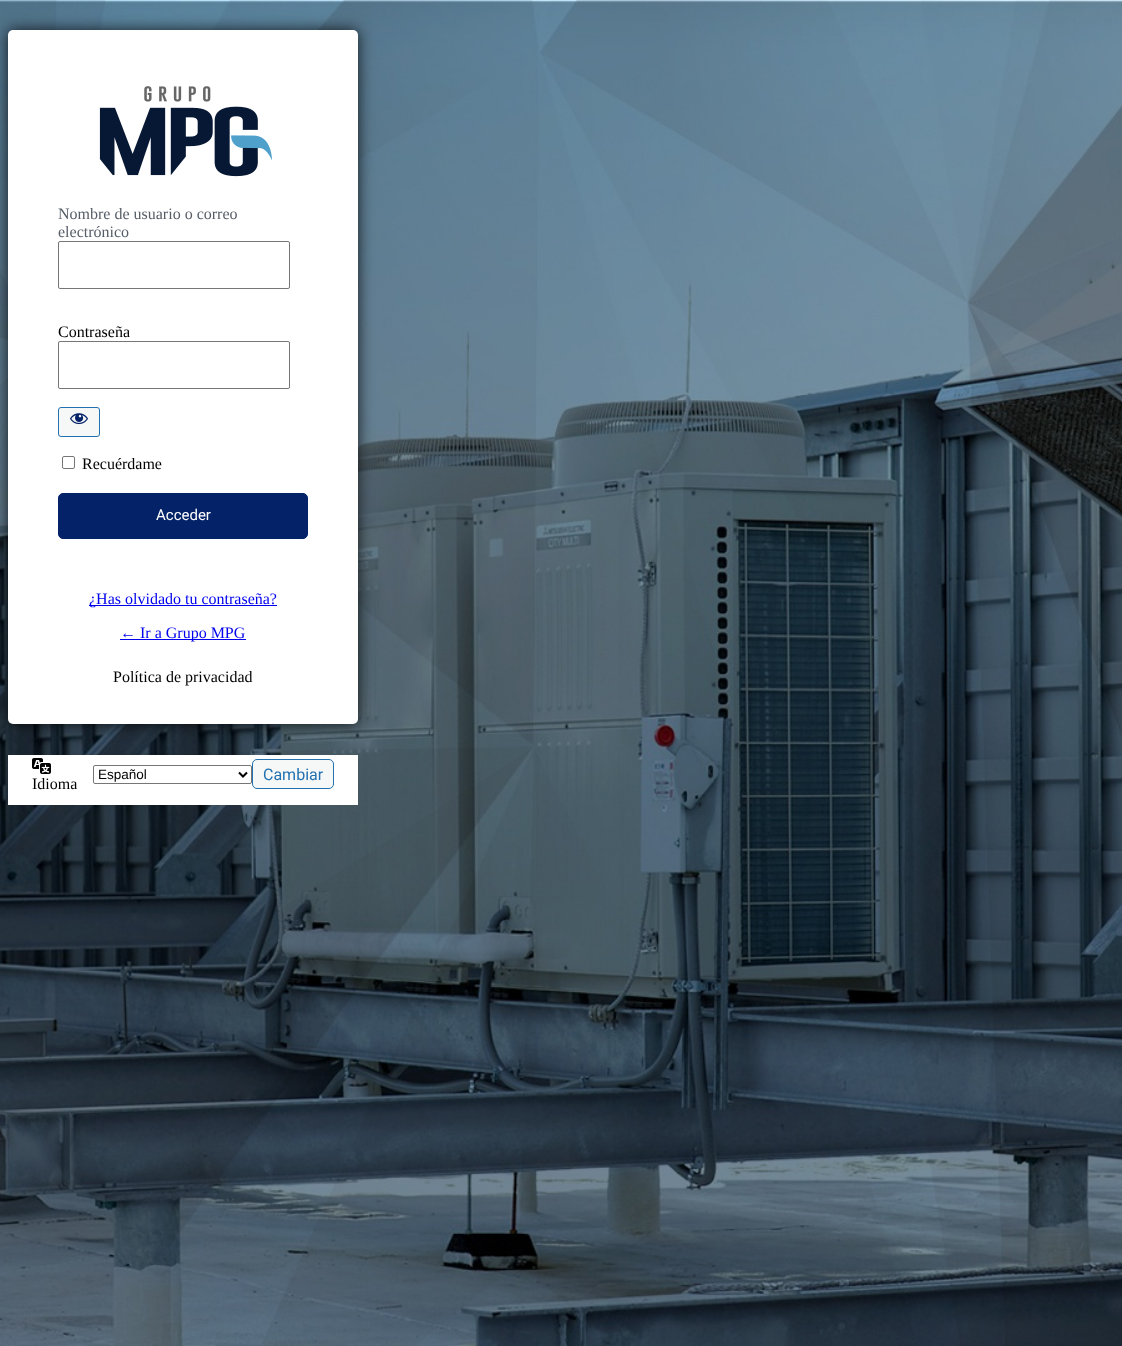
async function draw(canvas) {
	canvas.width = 1122;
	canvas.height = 1346;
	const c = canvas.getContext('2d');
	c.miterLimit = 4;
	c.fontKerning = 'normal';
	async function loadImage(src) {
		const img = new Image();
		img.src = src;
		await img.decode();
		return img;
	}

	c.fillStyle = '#fff';
	c.fillRect(0, 0, 1122, 1346);
	c.drawImage(await loadImage('img1.png'), 0, 0, 1122, 1346);
	c.fillStyle = '#000000cc';
	c.filter = 'blur(7.5px)';
	c.beginPath();
	c.roundRect(8, 30, 350, 694, 5);
	c.fill();
	c.filter = 'none';
	c.fillStyle = '#fff';
	c.beginPath();
	c.roundRect(8, 30, 350, 694, 5);
	c.fill();
	c.drawImage(await loadImage('img2.png'), 99, 86, 173, 91);
	c.font = '16px Liberation Serif';
	c.fillStyle = '#555d66';
	c.fillText('Nombre de usuario o correo', 58, 219);
	c.fillText('electrónico', 58, 237);
	c.beginPath();
	c.roundRect(58.5, 241.5, 231, 47, 1.5);
	c.strokeStyle = '#767676';
	c.stroke();
	c.fillStyle = '#000';
	c.fillText('Contraseña', 58, 337);
	c.beginPath();
	c.roundRect(58.5, 341.5, 231, 47, 1.5);
	c.stroke();
	c.fillStyle = '#f6f7f7';
	c.beginPath();
	c.roundRect(58.5, 407.5, 41, 29, 2.5);
	c.fill();
	c.strokeStyle = '#2271b1';
	c.stroke();
	c.drawImage(await loadImage('img3.png'), 70, 413, 18, 12);
	c.beginPath();
	c.roundRect(62.5, 456.5, 12, 12, 1.5);
	c.strokeStyle = '#767676';
	c.stroke();
	c.fillStyle = '#000';
	c.fillText('Recuérdame', 82, 469);
	c.fillStyle = '#042268';
	c.beginPath();
	c.roundRect(58.5, 493.5, 249, 45, 4.5);
	c.fill();
	c.strokeStyle = '#042268';
	c.stroke();
	c.font = '15px Roboto';
	c.fillStyle = '#fff';
	c.fillText('Acceder', 156, 520);
	c.fillStyle = '#00e';
	c.fillRect(89, 605, 188, 1);
	c.font = '16px Liberation Serif';
	c.fillText('¿Has olvidado tu contraseña?', 89, 604);
	c.fillRect(120, 639, 126, 1);
	c.fillText('← Ir a Grupo MPG', 120, 638);
	c.fillStyle = '#000';
	c.fillText('Política de privacidad', 113, 682);
	c.fillStyle = '#fff';
	c.fillRect(8, 755, 350, 50);
	c.beginPath();
	c.roundRect(93.5, 765.5, 158, 18, 1.5);
	c.strokeStyle = '#767676';
	c.stroke();
	c.beginPath();
	c.moveTo(239, 772.5);
	c.lineTo(243, 776.5);
	c.lineTo(247, 772.5);
	c.strokeStyle = '#000';
	c.lineWidth = 2;
	c.stroke();
	c.font = '13.5px Liberation Sans';
	c.fillStyle = '#000';
	c.fillText('Español', 98, 779);
	c.fillStyle = '#f6f7f7';
	c.beginPath();
	c.roundRect(252.5, 759.5, 81, 29, 4.5);
	c.fill();
	c.strokeStyle = '#2271b1';
	c.lineWidth = 1;
	c.stroke();
	c.font = '16px Roboto';
	c.fillStyle = '#2271b1';
	c.fillText('Cambiar', 263, 780);
	c.drawImage(await loadImage('img4.png'), 32, 758, 19, 16);
	c.font = '16px Liberation Serif';
	c.fillStyle = '#000';
	c.fillText('Idioma', 32, 789);
}

draw(document.querySelector('canvas'));
